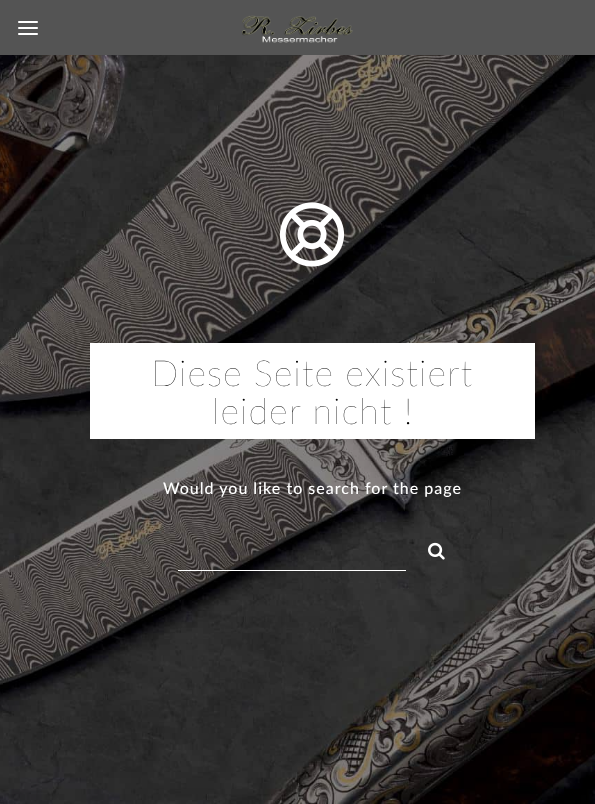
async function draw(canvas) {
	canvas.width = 595;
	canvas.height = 804;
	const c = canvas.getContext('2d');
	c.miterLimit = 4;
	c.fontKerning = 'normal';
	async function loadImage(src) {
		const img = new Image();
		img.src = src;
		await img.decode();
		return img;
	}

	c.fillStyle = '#000';
	c.fillRect(0, 0, 595, 804);
	c.fillStyle = '#545454';
	c.fillRect(0, 0, 595, 55);
	c.drawImage(await loadImage('img1.png'), 242, 15, 111, 28);
	c.drawImage(await loadImage('img2.png'), 18, 21, 20, 14);
	c.drawImage(await loadImage('img3.png'), 0, 55, 595, 749);
	c.drawImage(await loadImage('img4.png'), 279, 202, 66, 65);
	c.fillStyle = '#fff';
	c.fillRect(90, 343, 445, 96);
	c.letterSpacing = '1px';
	c.font = '200 36px Lato';
	c.fillStyle = '#000';
	c.fillText('Diese Seite existiert', 151, 386);
	c.fillText('leider nicht !', 212, 424);
	c.font = '500 16px Lato';
	c.fillStyle = '#fff';
	c.fillText('Would you like to search for the page', 163, 494);
	c.drawImage(await loadImage('img5.png'), 428, 542, 17, 18);
	c.fillRect(178, 570, 228, 1);
}

draw(document.querySelector('canvas'));
